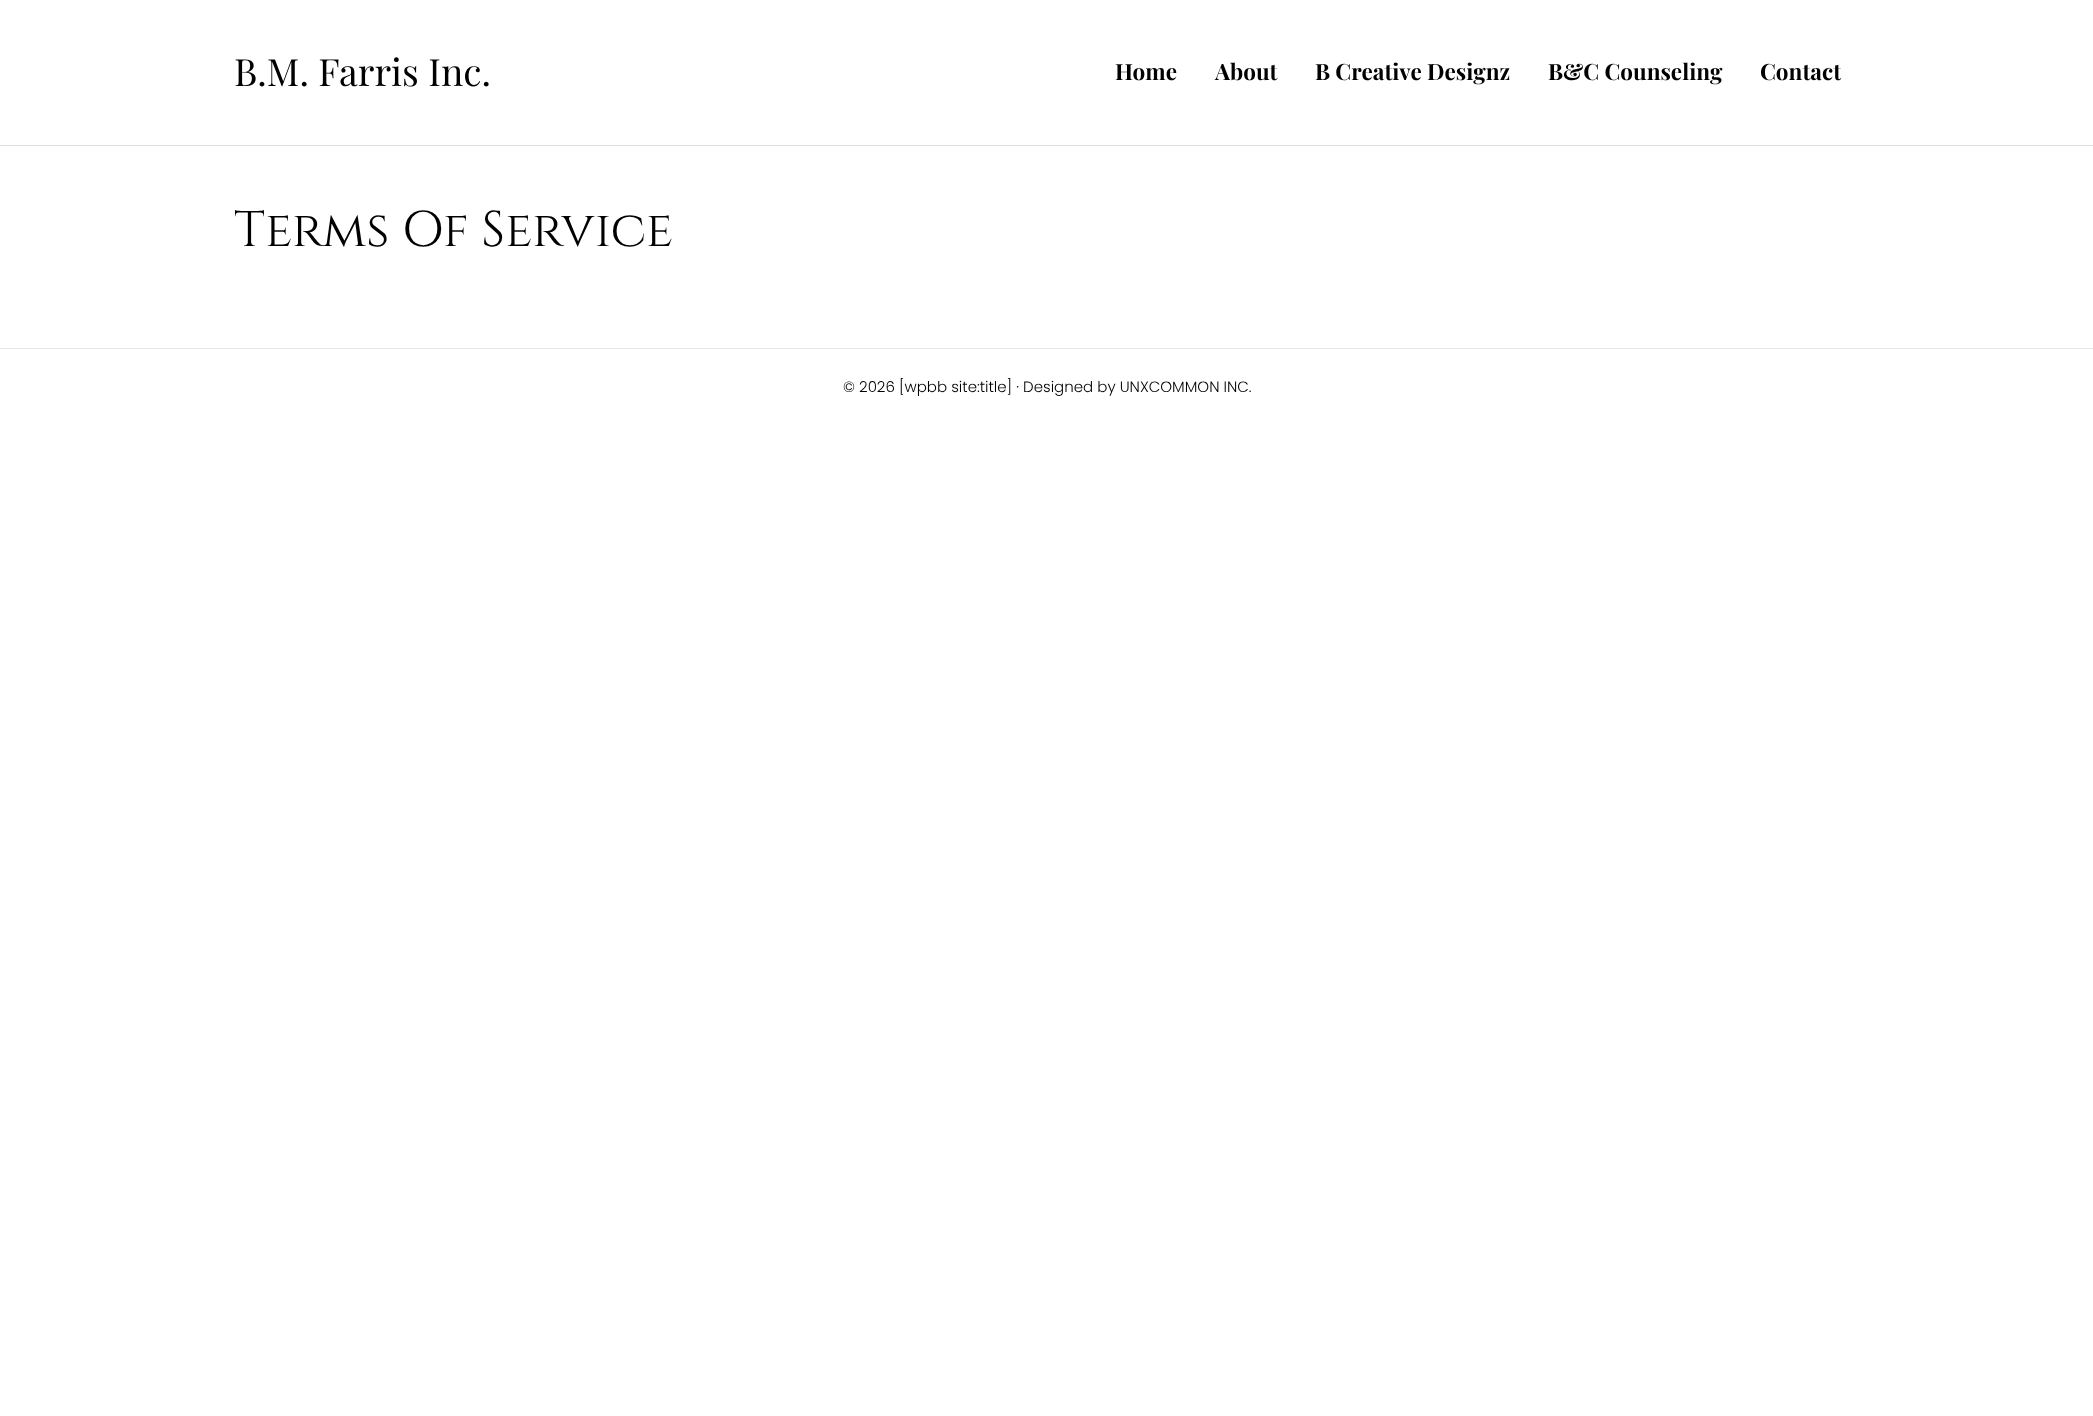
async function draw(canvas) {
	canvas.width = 2093;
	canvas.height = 1416;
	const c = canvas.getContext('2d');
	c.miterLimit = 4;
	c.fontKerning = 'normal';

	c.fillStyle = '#fff';
	c.fillRect(0, 0, 2093, 1416);
	c.fillStyle = '#dedede';
	c.fillRect(0, 145, 2093, 1);
	c.font = '37.5px Playfair Display';
	c.fillStyle = '#000';
	c.fillText('B.M. Farris Inc.', 234, 86);
	c.font = 'bold 22.5px Playfair Display';
	for (const [text, x, y] of [
		['Home', 1115, 80],
		['About', 1215, 80],
		['B Creative Designz', 1315, 80],
		['B&C Counseling', 1548, 80],
		['Contact', 1760, 80],
	]) {
		c.fillText(text, x, y);
	}
	c.font = '50px Cinzel';
	c.fillText('Terms Of Service', 234, 246);
	c.fillStyle = '#e6e6e6';
	c.fillRect(0, 348, 2093, 1);
	c.font = '300 15px Poppins';
	c.fillStyle = '#000';
	c.fillText('© 2026 [wpbb site:title] · Designed by UNXCOMMON INC.', 843, 392);
}

draw(document.querySelector('canvas'));
